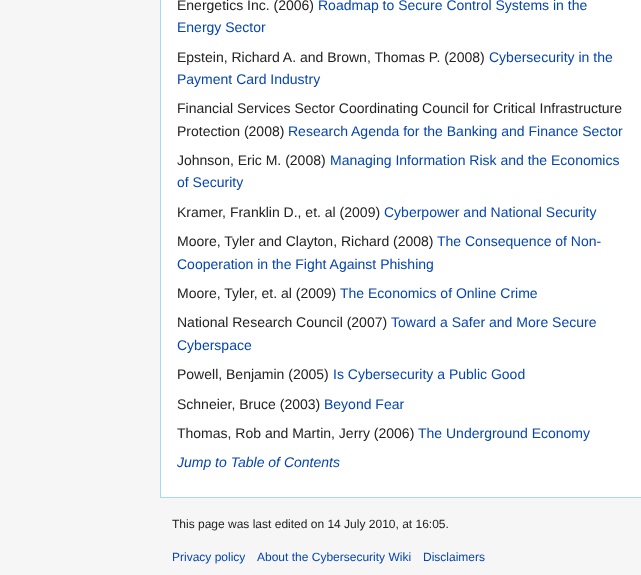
async function draw(canvas) {
	canvas.width = 641;
	canvas.height = 575;
	const c = canvas.getContext('2d');
	c.miterLimit = 4;
	c.fontKerning = 'normal';

	c.fillStyle = '#f6f6f6';
	c.fillRect(0, 0, 641, 575);
	for (const [x, y, w, h, color] of [
		[161, 0, 480, 497, '#fff'],
		[160, 497, 481, 1, '#a7d7f9'],
		[160, 0, 1, 498, '#a7d7f9'],
	]) {
		c.fillStyle = color;
		c.fillRect(x, y, w, h);
	}
	c.font = '14px Liberation Sans';
	c.fillStyle = '#202122';
	c.fillText('Energetics Inc. (2006)', 177, 10);
	c.fillStyle = '#0645ad';
	c.fillText('Roadmap to Secure Control Systems in the', 318, 10);
	c.fillText('Energy Sector', 177, 32);
	c.fillStyle = '#202122';
	c.fillText('Epstein, Richard A. and Brown, Thomas P. (2008)', 177, 62);
	c.fillStyle = '#0645ad';
	c.fillText('Cybersecurity in the', 489, 62);
	c.fillText('Payment Card Industry', 177, 84);
	c.fillStyle = '#202122';
	c.fillText('Financial Services Sector Coordinating Council for Critical Infrastructure', 177, 113);
	c.fillText('Protection (2008)', 177, 136);
	c.fillStyle = '#0645ad';
	c.fillText('Research Agenda for the Banking and Finance Sector', 288, 136);
	c.fillStyle = '#202122';
	c.fillText('Johnson, Eric M. (2008)', 177, 165);
	c.fillStyle = '#0645ad';
	c.fillText('Managing Information Risk and the Economics', 330, 165);
	c.fillText('of Security', 177, 187);
	c.fillStyle = '#202122';
	c.fillText('Kramer, Franklin D., et. al (2009)', 177, 217);
	c.fillStyle = '#0645ad';
	c.fillText('Cyberpower and National Security', 384, 217);
	c.fillStyle = '#202122';
	c.fillText('Moore, Tyler and Clayton, Richard (2008)', 177, 246);
	c.fillStyle = '#0645ad';
	c.fillText('The Consequence of Non-', 437, 246);
	c.fillText('Cooperation in the Fight Against Phishing', 177, 269);
	c.fillStyle = '#202122';
	c.fillText('Moore, Tyler, et. al (2009)', 177, 298);
	c.fillStyle = '#0645ad';
	c.fillText('The Economics of Online Crime', 340, 298);
	c.fillStyle = '#202122';
	c.fillText('National Research Council (2007)', 177, 327);
	c.fillStyle = '#0645ad';
	c.fillText('Toward a Safer and More Secure', 391, 327);
	c.fillText('Cyberspace', 177, 350);
	c.fillStyle = '#202122';
	c.fillText('Powell, Benjamin (2005)', 177, 379);
	c.fillStyle = '#0645ad';
	c.fillText('Is Cybersecurity a Public Good', 333, 379);
	c.fillStyle = '#202122';
	c.fillText('Schneier, Bruce (2003)', 177, 409);
	c.fillStyle = '#0645ad';
	c.fillText('Beyond Fear', 324, 409);
	c.fillStyle = '#202122';
	c.fillText('Thomas, Rob and Martin, Jerry (2006)', 177, 438);
	c.fillStyle = '#0645ad';
	c.fillText('The Underground Economy', 418, 438);
	c.font = 'italic 14px Liberation Sans';
	c.fillText('Jump to Table of Contents', 177, 467);
	c.font = '12px Liberation Sans';
	c.fillStyle = '#202122';
	c.fillText('This page was last edited on 14 July 2010, at 16:05.', 172, 528);
	c.fillStyle = '#0645ad';
	for (const [text, x, y] of [
		['Privacy policy', 172, 561],
		['About the Cybersecurity Wiki', 257, 561],
		['Disclaimers', 423, 561],
	]) {
		c.fillText(text, x, y);
	}
}

draw(document.querySelector('canvas'));
